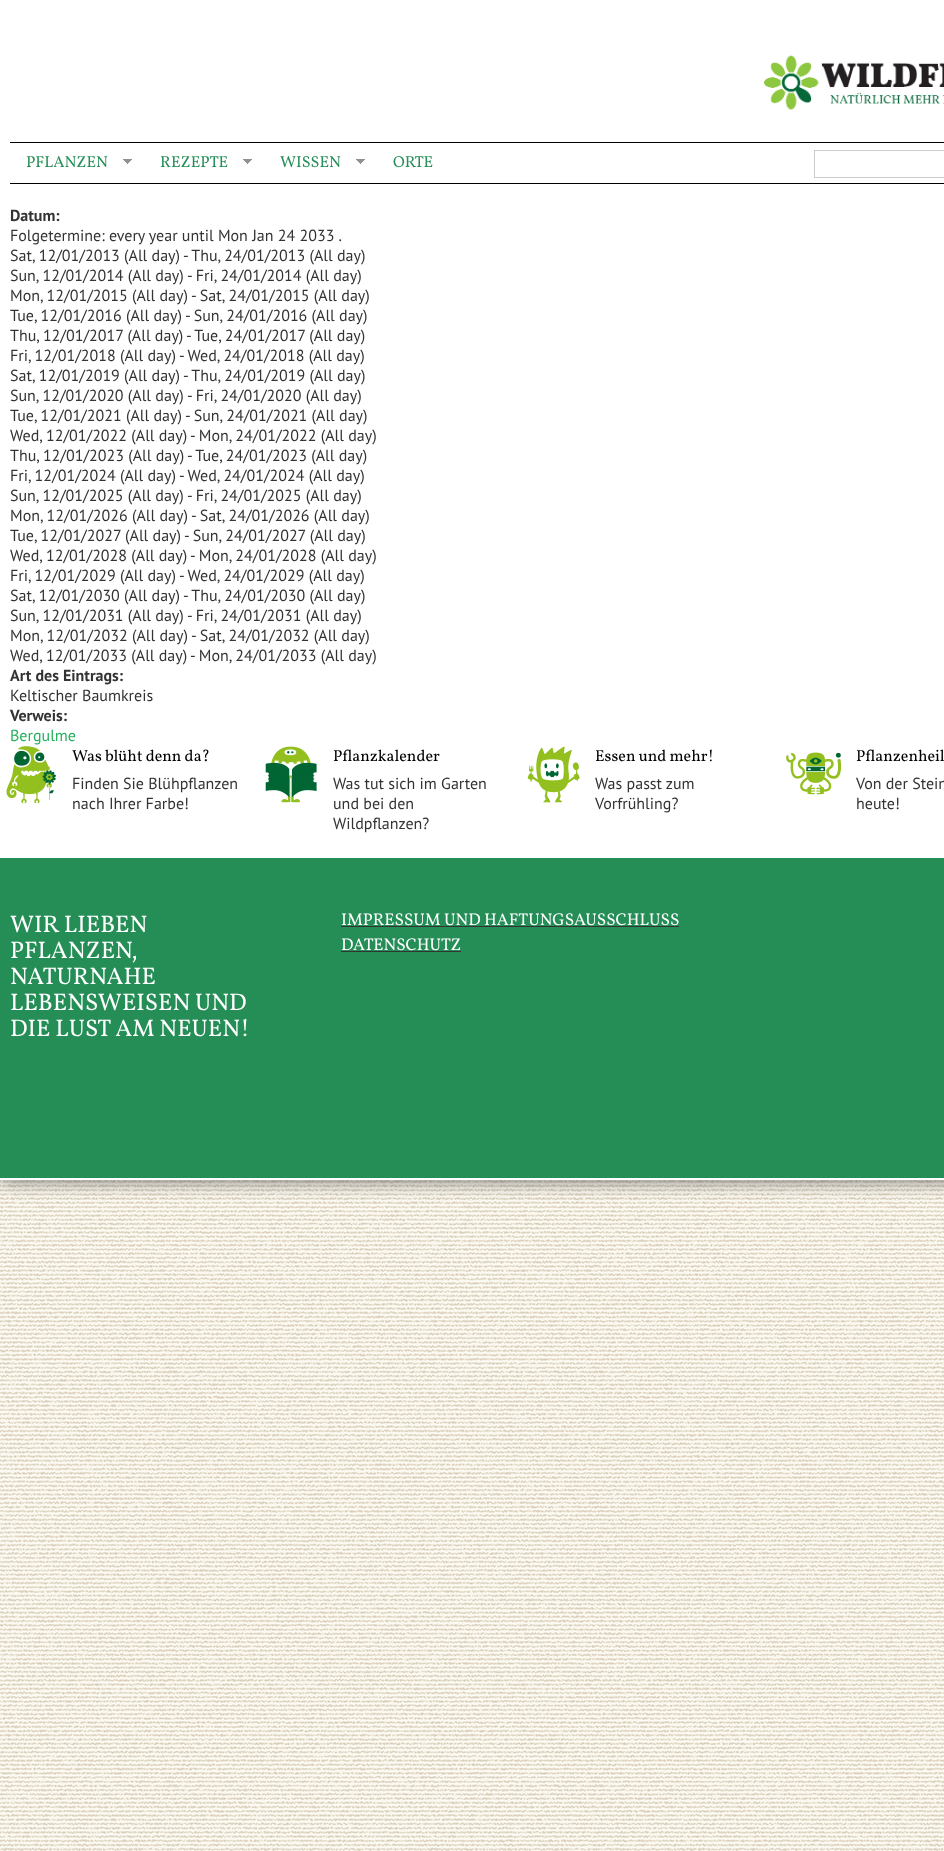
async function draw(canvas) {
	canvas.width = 944;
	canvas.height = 1851;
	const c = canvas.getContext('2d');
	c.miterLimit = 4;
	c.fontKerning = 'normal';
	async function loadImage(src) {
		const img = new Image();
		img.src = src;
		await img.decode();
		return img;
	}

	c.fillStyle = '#fff';
	c.fillRect(0, 0, 944, 1851);
	c.drawImage(await loadImage('img1.png'), 0, 1180, 944, 671);
	c.fillStyle = '#10101094';
	c.filter = 'blur(10px)';
	c.beginPath();
	c.rect(0, 0, 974, 1180);
	c.fill();
	c.filter = 'none';
	for (const [x, y, w, h, color] of [
		[0, 0, 944, 1180, '#fff'],
		[10, 142, 934, 1, '#000'],
		[10, 183, 934, 1, '#000'],
	]) {
		c.fillStyle = color;
		c.fillRect(x, y, w, h);
	}
	c.font = '16px Vollkorn';
	c.fillStyle = '#258e57';
	c.fillText('PFLANZEN', 26, 167);
	c.drawImage(await loadImage('img2.png'), 123, 159, 9, 5);
	c.fillText('REZEPTE', 160, 167);
	c.drawImage(await loadImage('img2.png'), 243, 159, 9, 5);
	c.fillText('WISSEN', 280, 167);
	c.drawImage(await loadImage('img2.png'), 356, 159, 9, 5);
	c.fillText('ORTE', 393, 167);
	c.drawImage(await loadImage('img3.png'), 764, 55, 180, 55);
	c.strokeStyle = '#ccc';
	c.strokeRect(814.5, 150.5, 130, 27);
	c.font = 'bold 16px PT Sans';
	c.fillStyle = '#333';
	c.fillText('Datum:', 10, 221);
	c.font = '16px PT Sans';
	for (const [text, x, y] of [
		['Folgetermine: every year until Mon Jan 24 2033 .', 10, 241],
		['Sat, 12/01/2013 (All day)', 10, 261],
		['- Thu, 24/01/2013 (All day)', 183, 261],
		['Sun, 12/01/2014 (All day)', 10, 281],
		['- Fri, 24/01/2014 (All day)', 187, 281],
		['Mon, 12/01/2015 (All day)', 10, 301],
		['- Sat, 24/01/2015 (All day)', 191, 301],
		['Tue, 12/01/2016 (All day)', 10, 321],
		['- Sun, 24/01/2016 (All day)', 185, 321],
		['Thu, 12/01/2017 (All day)', 10, 341],
		['- Tue, 24/01/2017 (All day)', 186, 341],
		['Fri, 12/01/2018 (All day)', 10, 361],
		['- Wed, 24/01/2018 (All day)', 179, 361],
		['Sat, 12/01/2019 (All day)', 10, 381],
		['- Thu, 24/01/2019 (All day)', 183, 381],
		['Sun, 12/01/2020 (All day)', 10, 401],
		['- Fri, 24/01/2020 (All day)', 187, 401],
		['Tue, 12/01/2021 (All day)', 10, 421],
		['- Sun, 24/01/2021 (All day)', 185, 421],
		['Wed, 12/01/2022 (All day)', 10, 441],
		['- Mon, 24/01/2022 (All day)', 190, 441],
		['Thu, 12/01/2023 (All day)', 10, 461],
		['- Tue, 24/01/2023 (All day)', 187, 461],
		['Fri, 12/01/2024 (All day)', 10, 481],
		['- Wed, 24/01/2024 (All day)', 179, 481],
		['Sun, 12/01/2025 (All day)', 10, 501],
		['- Fri, 24/01/2025 (All day)', 187, 501],
		['Mon, 12/01/2026 (All day)', 10, 521],
		['- Sat, 24/01/2026 (All day)', 191, 521],
		['Tue, 12/01/2027 (All day)', 10, 541],
		['- Sun, 24/01/2027 (All day)', 184, 541],
		['Wed, 12/01/2028 (All day)', 10, 561],
		['- Mon, 24/01/2028 (All day)', 190, 561],
		['Fri, 12/01/2029 (All day)', 10, 581],
		['- Wed, 24/01/2029 (All day)', 179, 581],
		['Sat, 12/01/2030 (All day)', 10, 601],
		['- Thu, 24/01/2030 (All day)', 183, 601],
		['Sun, 12/01/2031 (All day)', 10, 621],
		['- Fri, 24/01/2031 (All day)', 187, 621],
		['Mon, 12/01/2032 (All day)', 10, 641],
		['- Sat, 24/01/2032 (All day)', 191, 641],
		['Wed, 12/01/2033 (All day)', 10, 661],
		['- Mon, 24/01/2033 (All day)', 190, 661],
	]) {
		c.fillText(text, x, y);
	}
	c.font = 'bold 16px PT Sans';
	c.fillText('Art des Eintrags:', 10, 681);
	c.font = '16px PT Sans';
	c.fillText('Keltischer Baumkreis', 10, 701);
	c.font = 'bold 16px PT Sans';
	c.fillText('Verweis:', 10, 721);
	c.font = '16px PT Sans';
	c.fillStyle = '#26b05c';
	c.fillText('Bergulme', 10, 741);
	c.drawImage(await loadImage('img4.png'), 6, 746, 50, 58);
	c.font = '16px Vollkorn';
	c.fillStyle = '#000';
	c.fillText('Was blüht denn da?', 72, 761);
	c.font = '16px PT Sans';
	c.fillStyle = '#333';
	c.fillText('Finden Sie Blühpflanzen', 72, 789);
	c.fillText('nach Ihrer Farbe!', 72, 809);
	c.drawImage(await loadImage('img5.png'), 265, 746, 52, 57);
	c.font = '16px Vollkorn';
	c.fillStyle = '#000';
	c.fillText('Pflanzkalender', 333, 761);
	c.font = '16px PT Sans';
	c.fillStyle = '#333';
	for (const [text, x, y] of [
		['Was tut sich im Garten', 333, 789],
		['und bei den', 333, 809],
		['Wildpflanzen?', 333, 829],
	]) {
		c.fillText(text, x, y);
	}
	c.drawImage(await loadImage('img6.png'), 527, 746, 53, 57);
	c.font = '16px Vollkorn';
	c.fillStyle = '#000';
	c.fillText('Essen und mehr!', 595, 761);
	c.font = '16px PT Sans';
	c.fillStyle = '#333';
	c.fillText('Was passt zum', 595, 789);
	c.fillText('Vorfrühling?', 595, 809);
	c.drawImage(await loadImage('img7.png'), 786, 752, 56, 43);
	c.font = '16px Vollkorn';
	c.fillStyle = '#000';
	c.fillText('Pflanzenheil', 856, 761);
	c.font = '16px PT Sans';
	c.fillStyle = '#333';
	c.fillText('Von der Stein', 856, 789);
	c.fillText('heute!', 856, 809);
	c.fillStyle = '#258e57';
	c.fillRect(0, 858, 944, 320);
	c.font = '24px Vollkorn';
	c.fillStyle = '#fff';
	for (const [text, x, y] of [
		['WIR LIEBEN', 10, 932],
		['PFLANZEN,', 10, 958],
		['NATURNAHE', 10, 984],
		['LEBENSWEISEN UND', 10, 1010],
		['DIE LUST AM NEUEN!', 10, 1036],
	]) {
		c.fillText(text, x, y);
	}
	c.font = '17px Vollkorn';
	c.fillText('IMPRESSUM UND HAFTUNGSAUSSCHLUSS', 341, 925);
	c.fillStyle = '#333';
	c.fillRect(341, 926, 338, 1);
	c.fillStyle = '#fff';
	c.fillText('DATENSCHUTZ', 341, 950);
	c.fillStyle = '#333';
	c.fillRect(341, 951, 120, 1);
}

draw(document.querySelector('canvas'));
